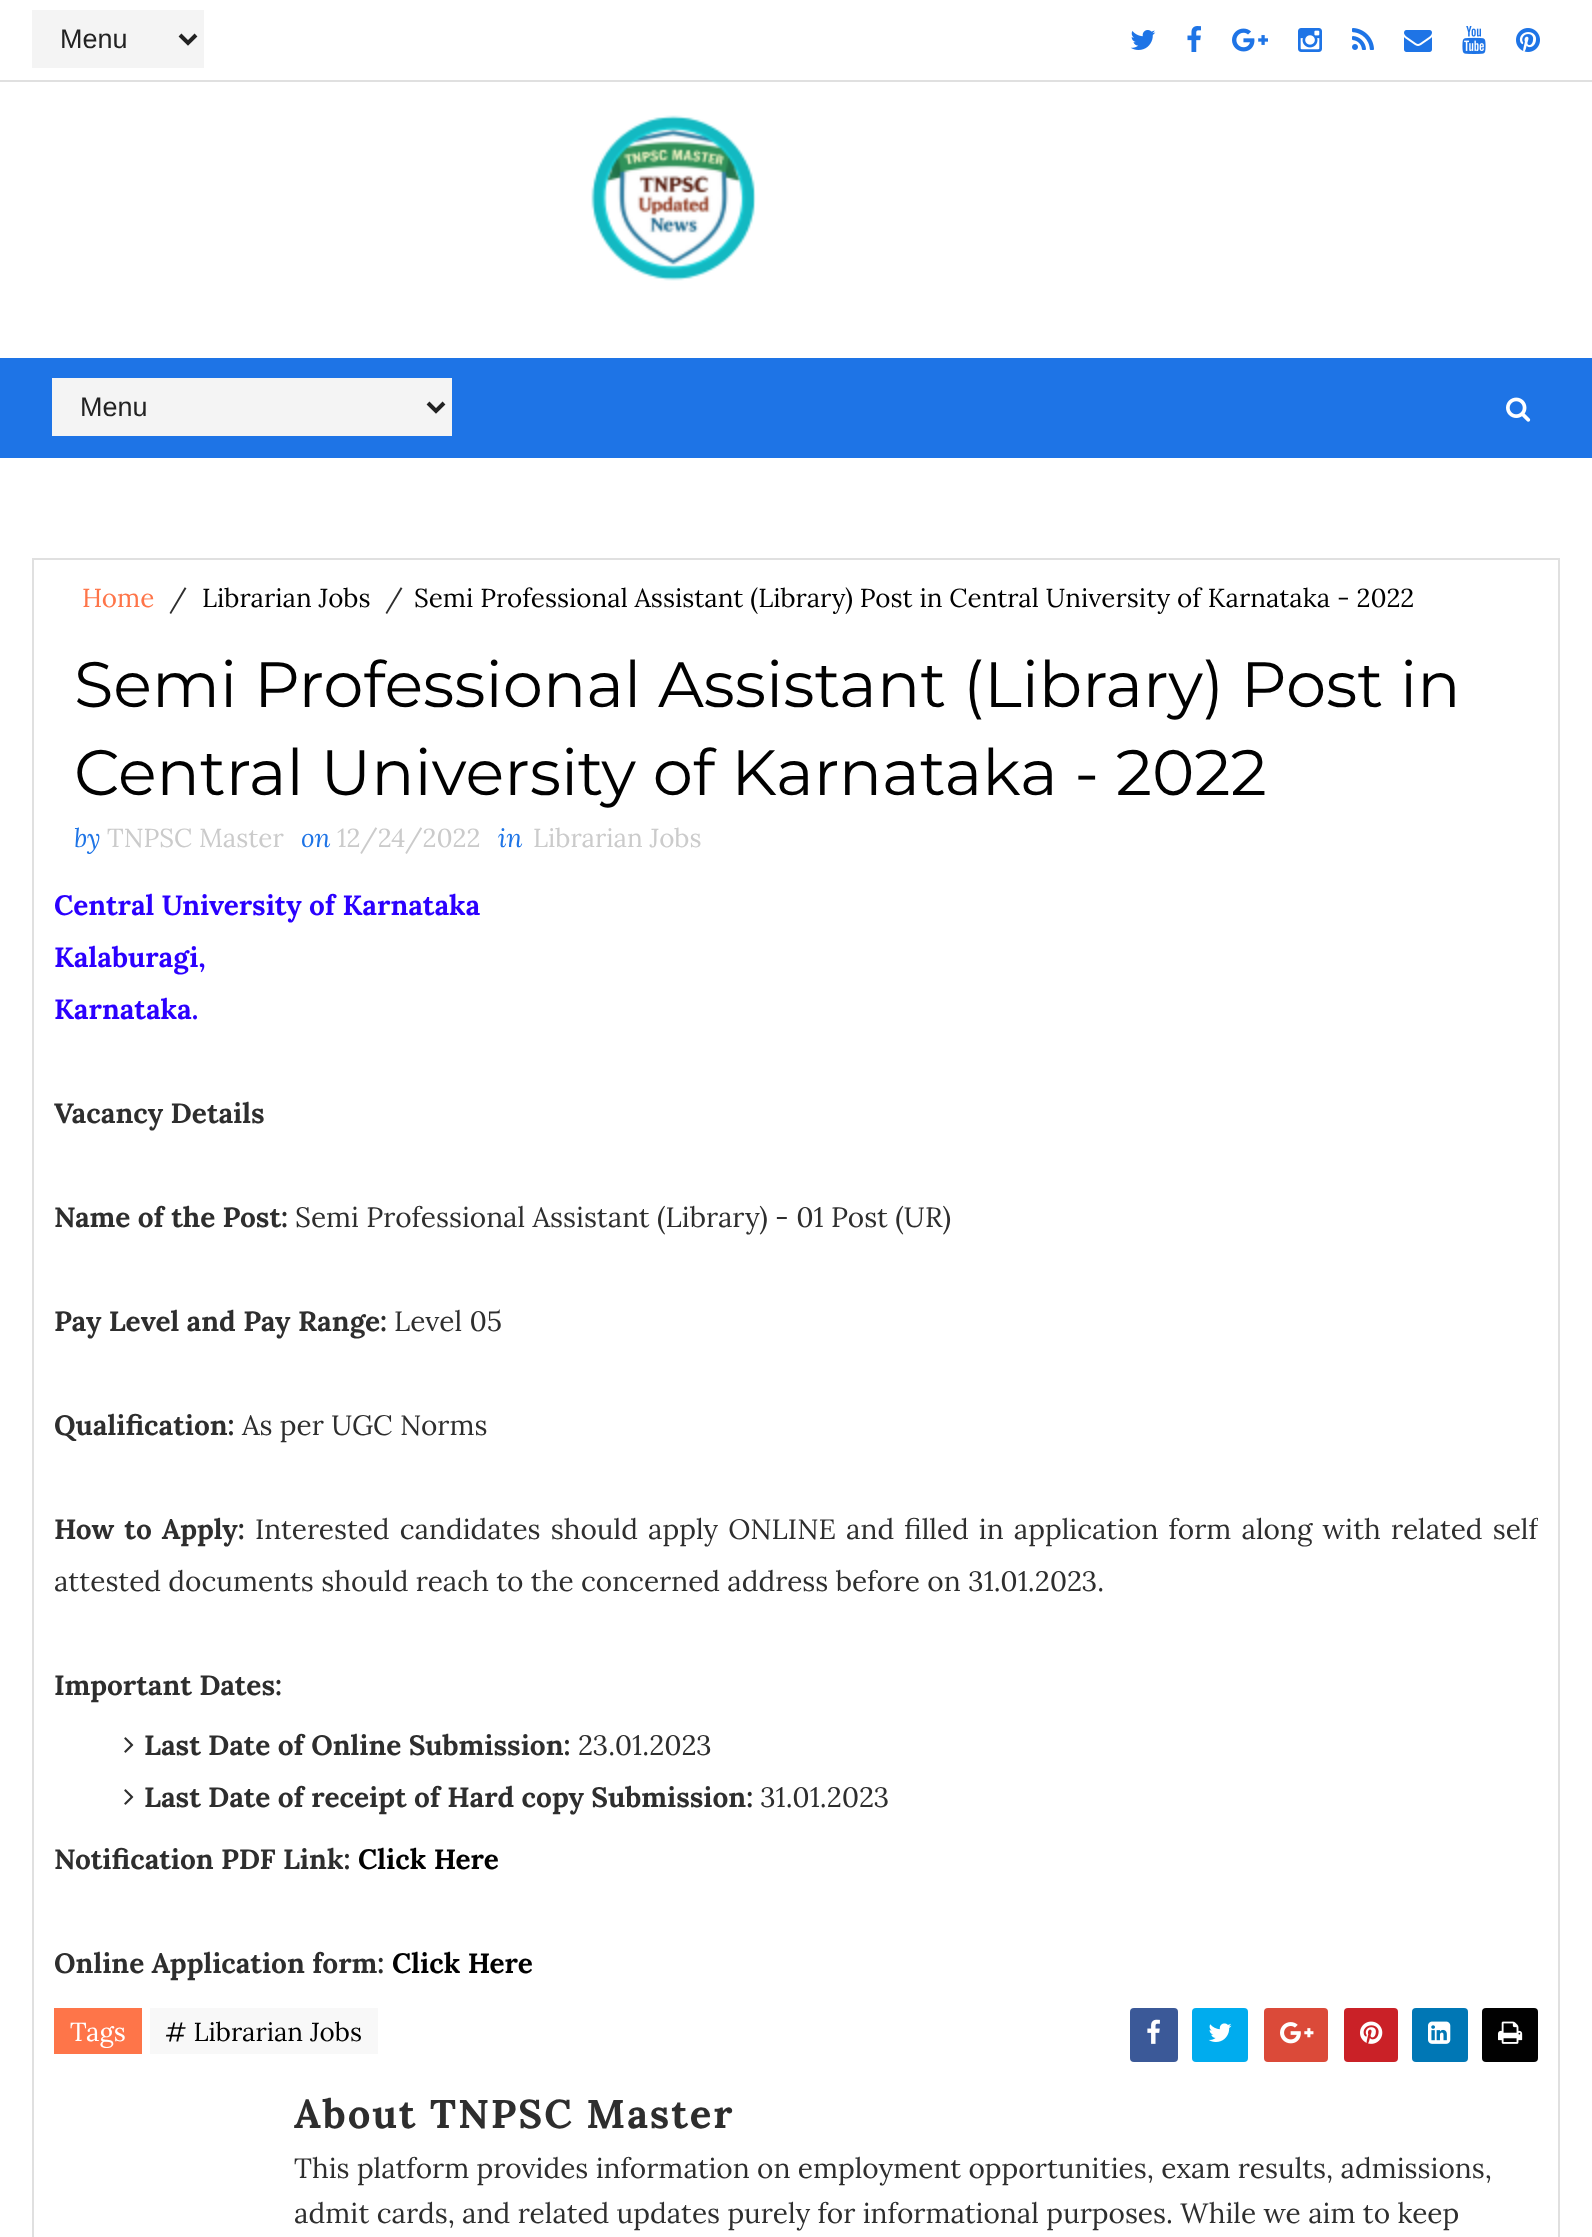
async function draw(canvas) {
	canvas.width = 1592;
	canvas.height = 2237;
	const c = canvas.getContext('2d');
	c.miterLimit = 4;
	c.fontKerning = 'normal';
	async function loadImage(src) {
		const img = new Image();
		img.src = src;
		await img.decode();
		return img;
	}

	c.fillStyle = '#fff';
	c.fillRect(0, 0, 1592, 2237);
	c.fillStyle = '#e0e0e0';
	c.fillRect(0, 80, 1592, 2);
	c.fillStyle = '#f4f4f4';
	c.fillRect(32, 10, 172, 58);
	c.beginPath();
	c.moveTo(180, 35);
	c.lineTo(188, 43);
	c.lineTo(196, 35);
	c.strokeStyle = '#222';
	c.lineWidth = 4;
	c.stroke();
	c.font = '27px Liberation Sans';
	c.fillStyle = '#222';
	c.fillText('Menu', 60, 48);
	c.drawImage(await loadImage('img1.png'), 1130, 30, 26, 20);
	c.drawImage(await loadImage('img2.png'), 1187, 26, 14, 26);
	c.drawImage(await loadImage('img3.png'), 1232, 28, 36, 24);
	c.drawImage(await loadImage('img4.png'), 1298, 28, 24, 24);
	c.drawImage(await loadImage('img5.png'), 1352, 28, 22, 22);
	c.drawImage(await loadImage('img6.png'), 1404, 30, 28, 22);
	c.drawImage(await loadImage('img7.png'), 1462, 26, 24, 28);
	c.drawImage(await loadImage('img8.png'), 1516, 28, 24, 24);
	c.drawImage(await loadImage('img9.png'), 591, 115, 165, 166);
	c.fillStyle = '#1e74e6';
	c.fillRect(0, 358, 1592, 100);
	c.fillStyle = '#f4f4f4';
	c.fillRect(52, 378, 400, 58);
	c.beginPath();
	c.moveTo(428, 403);
	c.lineTo(436, 411);
	c.lineTo(444, 403);
	c.stroke();
	c.fillStyle = '#222';
	c.fillText('Menu', 80, 416);
	c.drawImage(await loadImage('img10.png'), 1506, 397, 25, 25);
	c.strokeStyle = '#e0e0e0';
	c.lineWidth = 2;
	c.strokeRect(33, 559, 1526, 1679);
	c.font = '26px Lora';
	c.fillStyle = '#fe7549';
	c.fillText('Home', 82, 607);
	c.fillStyle = '#2e2e2e';
	c.fillText('/', 169, 607);
	c.fillStyle = '#010101';
	c.fillText('Librarian Jobs', 202, 607);
	c.fillStyle = '#2e2e2e';
	c.fillText('/', 385, 607);
	c.fillStyle = '#010101';
	c.fillText('Semi Professional Assistant (Library) Post in Central University of Karnataka - 2022', 414, 607);
	c.font = '64px Montserrat';
	c.fillText('Semi Professional Assistant (Library) Post in', 74, 707);
	c.fillText('Central University of Karnataka - 2022', 74, 795);
	c.font = 'italic 26px Lora';
	c.fillStyle = '#1e74e6';
	c.fillText('by', 74, 847);
	c.font = '26px Lora';
	c.fillStyle = '#cbcbcb';
	c.fillText('TNPSC Master', 107, 847);
	c.font = 'italic 26px Lora';
	c.fillStyle = '#1e74e6';
	c.fillText('on', 301, 847);
	c.font = '26px Lora';
	c.fillStyle = '#cbcbcb';
	c.fillText('12/24/2022', 337, 847);
	c.font = 'italic 26px Lora';
	c.fillStyle = '#1e74e6';
	c.fillText('in', 498, 847);
	c.font = '26px Lora';
	c.fillStyle = '#cbcbcb';
	c.fillText('Librarian Jobs', 533, 847);
	c.font = 'bold 28px Lora';
	c.fillStyle = '#2b00fe';
	for (const [text, x, y] of [
		['Central University of Karnataka', 54, 915],
		['Kalaburagi,', 54, 967],
		['Karnataka.', 54, 1019],
	]) {
		c.fillText(text, x, y);
	}
	c.fillStyle = '#2e2e2e';
	c.fillText('Vacancy Details', 54, 1123);
	c.fillText('Name of the Post:', 54, 1227);
	c.font = '28px Lora';
	c.fillText('Semi Professional Assistant (Library) - 01 Post (UR)', 295, 1227);
	c.font = 'bold 28px Lora';
	c.fillText('Pay Level and Pay Range:', 54, 1331);
	c.font = '28px Lora';
	c.fillText('Level 05', 394, 1331);
	c.font = 'bold 28px Lora';
	c.fillText('Qualification:', 54, 1435);
	c.font = '28px Lora';
	c.fillText('As per UGC Norms', 242, 1435);
	c.wordSpacing = '2.75px';
	c.font = 'bold 28px Lora';
	c.fillText('How to Apply:', 54, 1539);
	c.save();
	c.beginPath();
	c.rect(54, 878, 1484, 1110);
	c.clip();
	c.font = '28px Lora';
	c.fillText('Interested candidates should apply ONLINE and filled in application form along with related self', 255, 1539);
	c.restore();
	c.wordSpacing = '0px';
	c.font = '28px Lora';
	c.fillText('attested documents should reach to the concerned address before on 31.01.2023.', 54, 1591);
	c.font = 'bold 28px Lora';
	c.fillText('Important Dates:', 54, 1695);
	c.drawImage(await loadImage('img11.png'), 124, 1737, 10, 16);
	c.fillText('Last Date of Online Submission:', 144, 1755);
	c.font = '28px Lora';
	c.fillText('23.01.2023', 578, 1755);
	c.drawImage(await loadImage('img11.png'), 124, 1789, 10, 16);
	c.font = 'bold 28px Lora';
	c.fillText('Last Date of receipt of Hard copy Submission:', 144, 1807);
	c.font = '28px Lora';
	c.fillText('31.01.2023', 760, 1807);
	c.font = 'bold 28px Lora';
	c.fillText('Notification PDF Link:', 54, 1869);
	c.fillStyle = '#010101';
	c.fillText('Click Here', 358, 1869);
	c.fillStyle = '#2e2e2e';
	c.fillText('Online Application form:', 54, 1973);
	c.fillStyle = '#010101';
	c.fillText('Click Here', 392, 1973);
	c.fillStyle = '#fe7549';
	c.fillRect(54, 2008, 88, 46);
	c.font = '26px Lora';
	c.fillStyle = '#fff';
	c.fillText('Tags', 70, 2041);
	c.fillStyle = '#f8f8f8';
	c.fillRect(150, 2008, 228, 46);
	c.fillStyle = '#010101';
	c.fillText('# Librarian Jobs', 165, 2041);
	c.fillStyle = '#3b5998';
	c.beginPath();
	c.roundRect(1130, 2008, 48, 54, 4);
	c.fill();
	c.drawImage(await loadImage('img12.png'), 1147, 2019, 13, 25);
	c.fillStyle = '#00acee';
	c.beginPath();
	c.roundRect(1192, 2008, 56, 54, 4);
	c.fill();
	c.drawImage(await loadImage('img13.png'), 1208, 2023, 24, 19);
	c.fillStyle = '#db4a39';
	c.beginPath();
	c.roundRect(1264, 2008, 64, 54, 4);
	c.fill();
	c.drawImage(await loadImage('img14.png'), 1280, 2022, 34, 22);
	c.fillStyle = '#ca2127';
	c.beginPath();
	c.roundRect(1344, 2008, 54, 54, 4);
	c.fill();
	c.drawImage(await loadImage('img15.png'), 1360, 2021, 23, 23);
	c.fillStyle = '#0077b5';
	c.beginPath();
	c.roundRect(1412, 2008, 56, 54, 4);
	c.fill();
	c.drawImage(await loadImage('img16.png'), 1428, 2021, 23, 23);
	c.fillStyle = '#010101';
	c.beginPath();
	c.roundRect(1482, 2008, 56, 54, 4);
	c.fill();
	c.drawImage(await loadImage('img17.png'), 1498, 2021, 25, 23);
	c.letterSpacing = '2px';
	c.font = 'bold 40px Lora';
	c.fillStyle = '#2e2e2e';
	c.fillText('About TNPSC Master', 294, 2128);
	c.letterSpacing = '0px';
	c.font = '28px Lora';
	c.fillText('This platform provides information on employment opportunities, exam results, admissions,', 294, 2178);
	c.fillText('admit cards, and related updates purely for informational purposes. While we aim to keep', 294, 2223);
}

draw(document.querySelector('canvas'));
